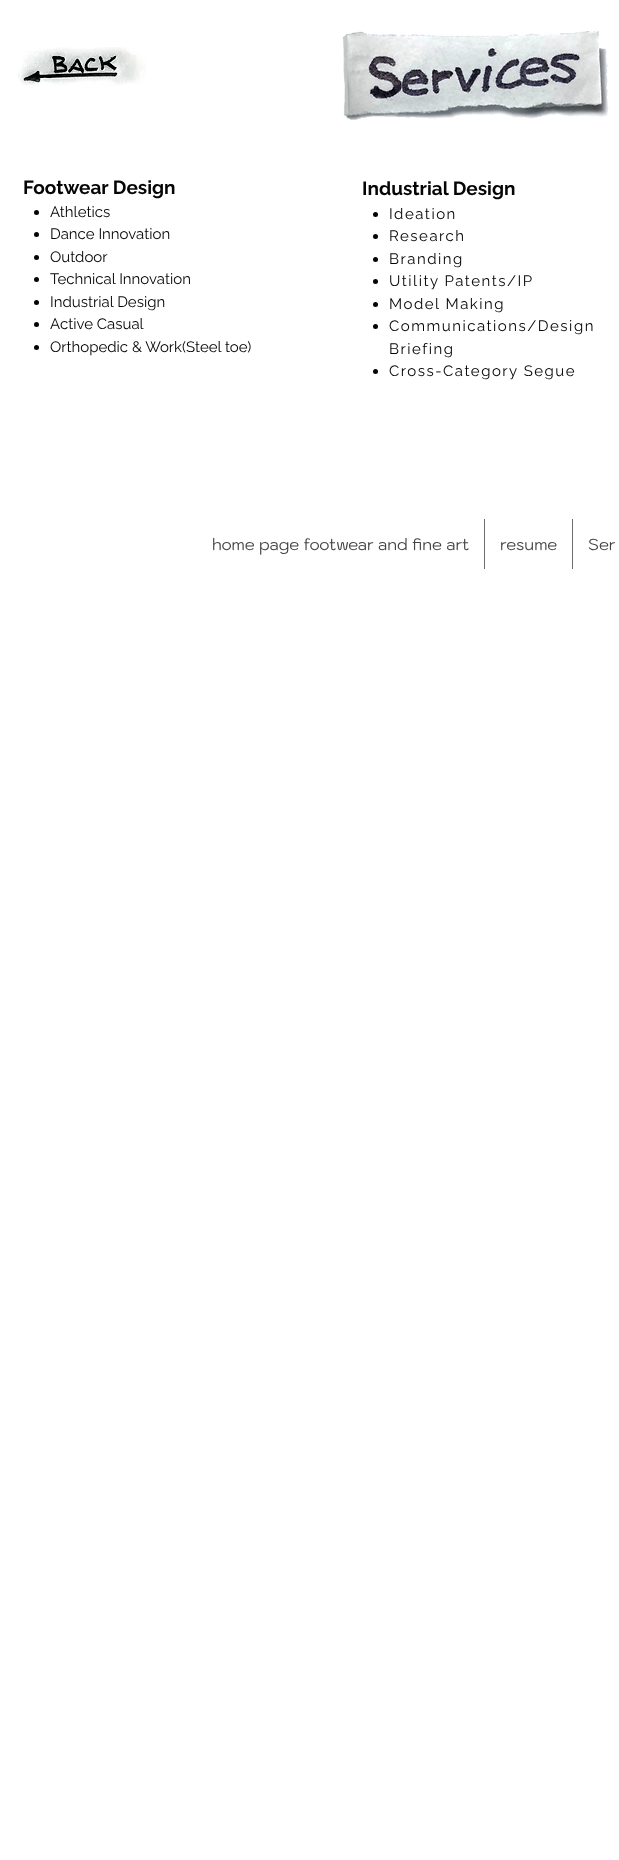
async function draw(canvas) {
	canvas.width = 619;
	canvas.height = 1860;
	const c = canvas.getContext('2d');
	c.miterLimit = 4;
	c.fontKerning = 'normal';
	async function loadImage(src) {
		const img = new Image();
		img.src = src;
		await img.decode();
		return img;
	}

	c.fillStyle = '#fff';
	c.fillRect(0, 0, 619, 1860);
	c.drawImage(await loadImage('img1.png'), 18, 47, 128, 39);
	c.drawImage(await loadImage('img2.png'), 342, 31, 267, 89);
	c.font = 'bold 19px Raleway';
	c.fillStyle = '#050505';
	c.fillText('Footwear Design', 23, 194);
	c.beginPath();
	c.arc(36.5, 212.5, 2.5, 0, 2 * Math.PI);
	c.fill();
	c.font = '15px Raleway';
	c.fillText('Athletics', 50, 217);
	c.beginPath();
	c.arc(36.5, 234.5, 2.5, 0, 2 * Math.PI);
	c.fill();
	c.fillText('Dance Innovation', 50, 239);
	c.beginPath();
	c.arc(36.5, 257.5, 2.5, 0, 2 * Math.PI);
	c.fill();
	c.fillText('Outdoor', 50, 262);
	c.beginPath();
	c.arc(36.5, 279.5, 2.5, 0, 2 * Math.PI);
	c.fill();
	c.fillText('Technical Innovation', 50, 284);
	c.beginPath();
	c.arc(36.5, 302.5, 2.5, 0, 2 * Math.PI);
	c.fill();
	c.fillText('Industrial Design', 50, 307);
	c.beginPath();
	c.arc(36.5, 324.5, 2.5, 0, 2 * Math.PI);
	c.fill();
	c.fillText('Active Casual', 50, 329);
	c.beginPath();
	c.arc(36.5, 347.5, 2.5, 0, 2 * Math.PI);
	c.fill();
	c.fillText('Orthopedic & Work(Steel toe)', 50, 352);
	c.font = 'bold 19px Raleway';
	c.fillText('Industrial Design', 362, 195);
	c.beginPath();
	c.arc(375.5, 214.5, 2.5, 0, 2 * Math.PI);
	c.fill();
	c.letterSpacing = '1.5px';
	c.font = '15px Raleway';
	c.fillText('Ideation', 389, 219);
	c.beginPath();
	c.arc(375.5, 236.5, 2.5, 0, 2 * Math.PI);
	c.fill();
	c.fillText('Research', 389, 241);
	c.beginPath();
	c.arc(375.5, 259.5, 2.5, 0, 2 * Math.PI);
	c.fill();
	c.fillText('Branding', 389, 264);
	c.beginPath();
	c.arc(375.5, 281.5, 2.5, 0, 2 * Math.PI);
	c.fill();
	c.fillText('Utility Patents/IP', 389, 286);
	c.beginPath();
	c.arc(375.5, 304.5, 2.5, 0, 2 * Math.PI);
	c.fill();
	c.fillText('Model Making', 389, 309);
	c.beginPath();
	c.arc(375.5, 326.5, 2.5, 0, 2 * Math.PI);
	c.fill();
	c.fillText('Communications/Design', 389, 331);
	c.fillText('Briefing', 389, 354);
	c.beginPath();
	c.arc(375.5, 371.5, 2.5, 0, 2 * Math.PI);
	c.fill();
	c.fillText('Cross-Category Segue', 389, 376);
	c.letterSpacing = '0px';
	c.font = '16px Kodchasan';
	c.fillStyle = '#444';
	c.fillText('home page footwear and fine art', 212, 550);
	c.fillStyle = '#6b6b6b';
	c.fillRect(484, 519, 1, 50);
	c.fillStyle = '#444';
	c.fillText('resume', 500, 550);
	c.fillStyle = '#6b6b6b';
	c.fillRect(572, 519, 1, 50);
	c.fillStyle = '#444';
	c.fillText('Ser', 588, 550);
}

draw(document.querySelector('canvas'));
